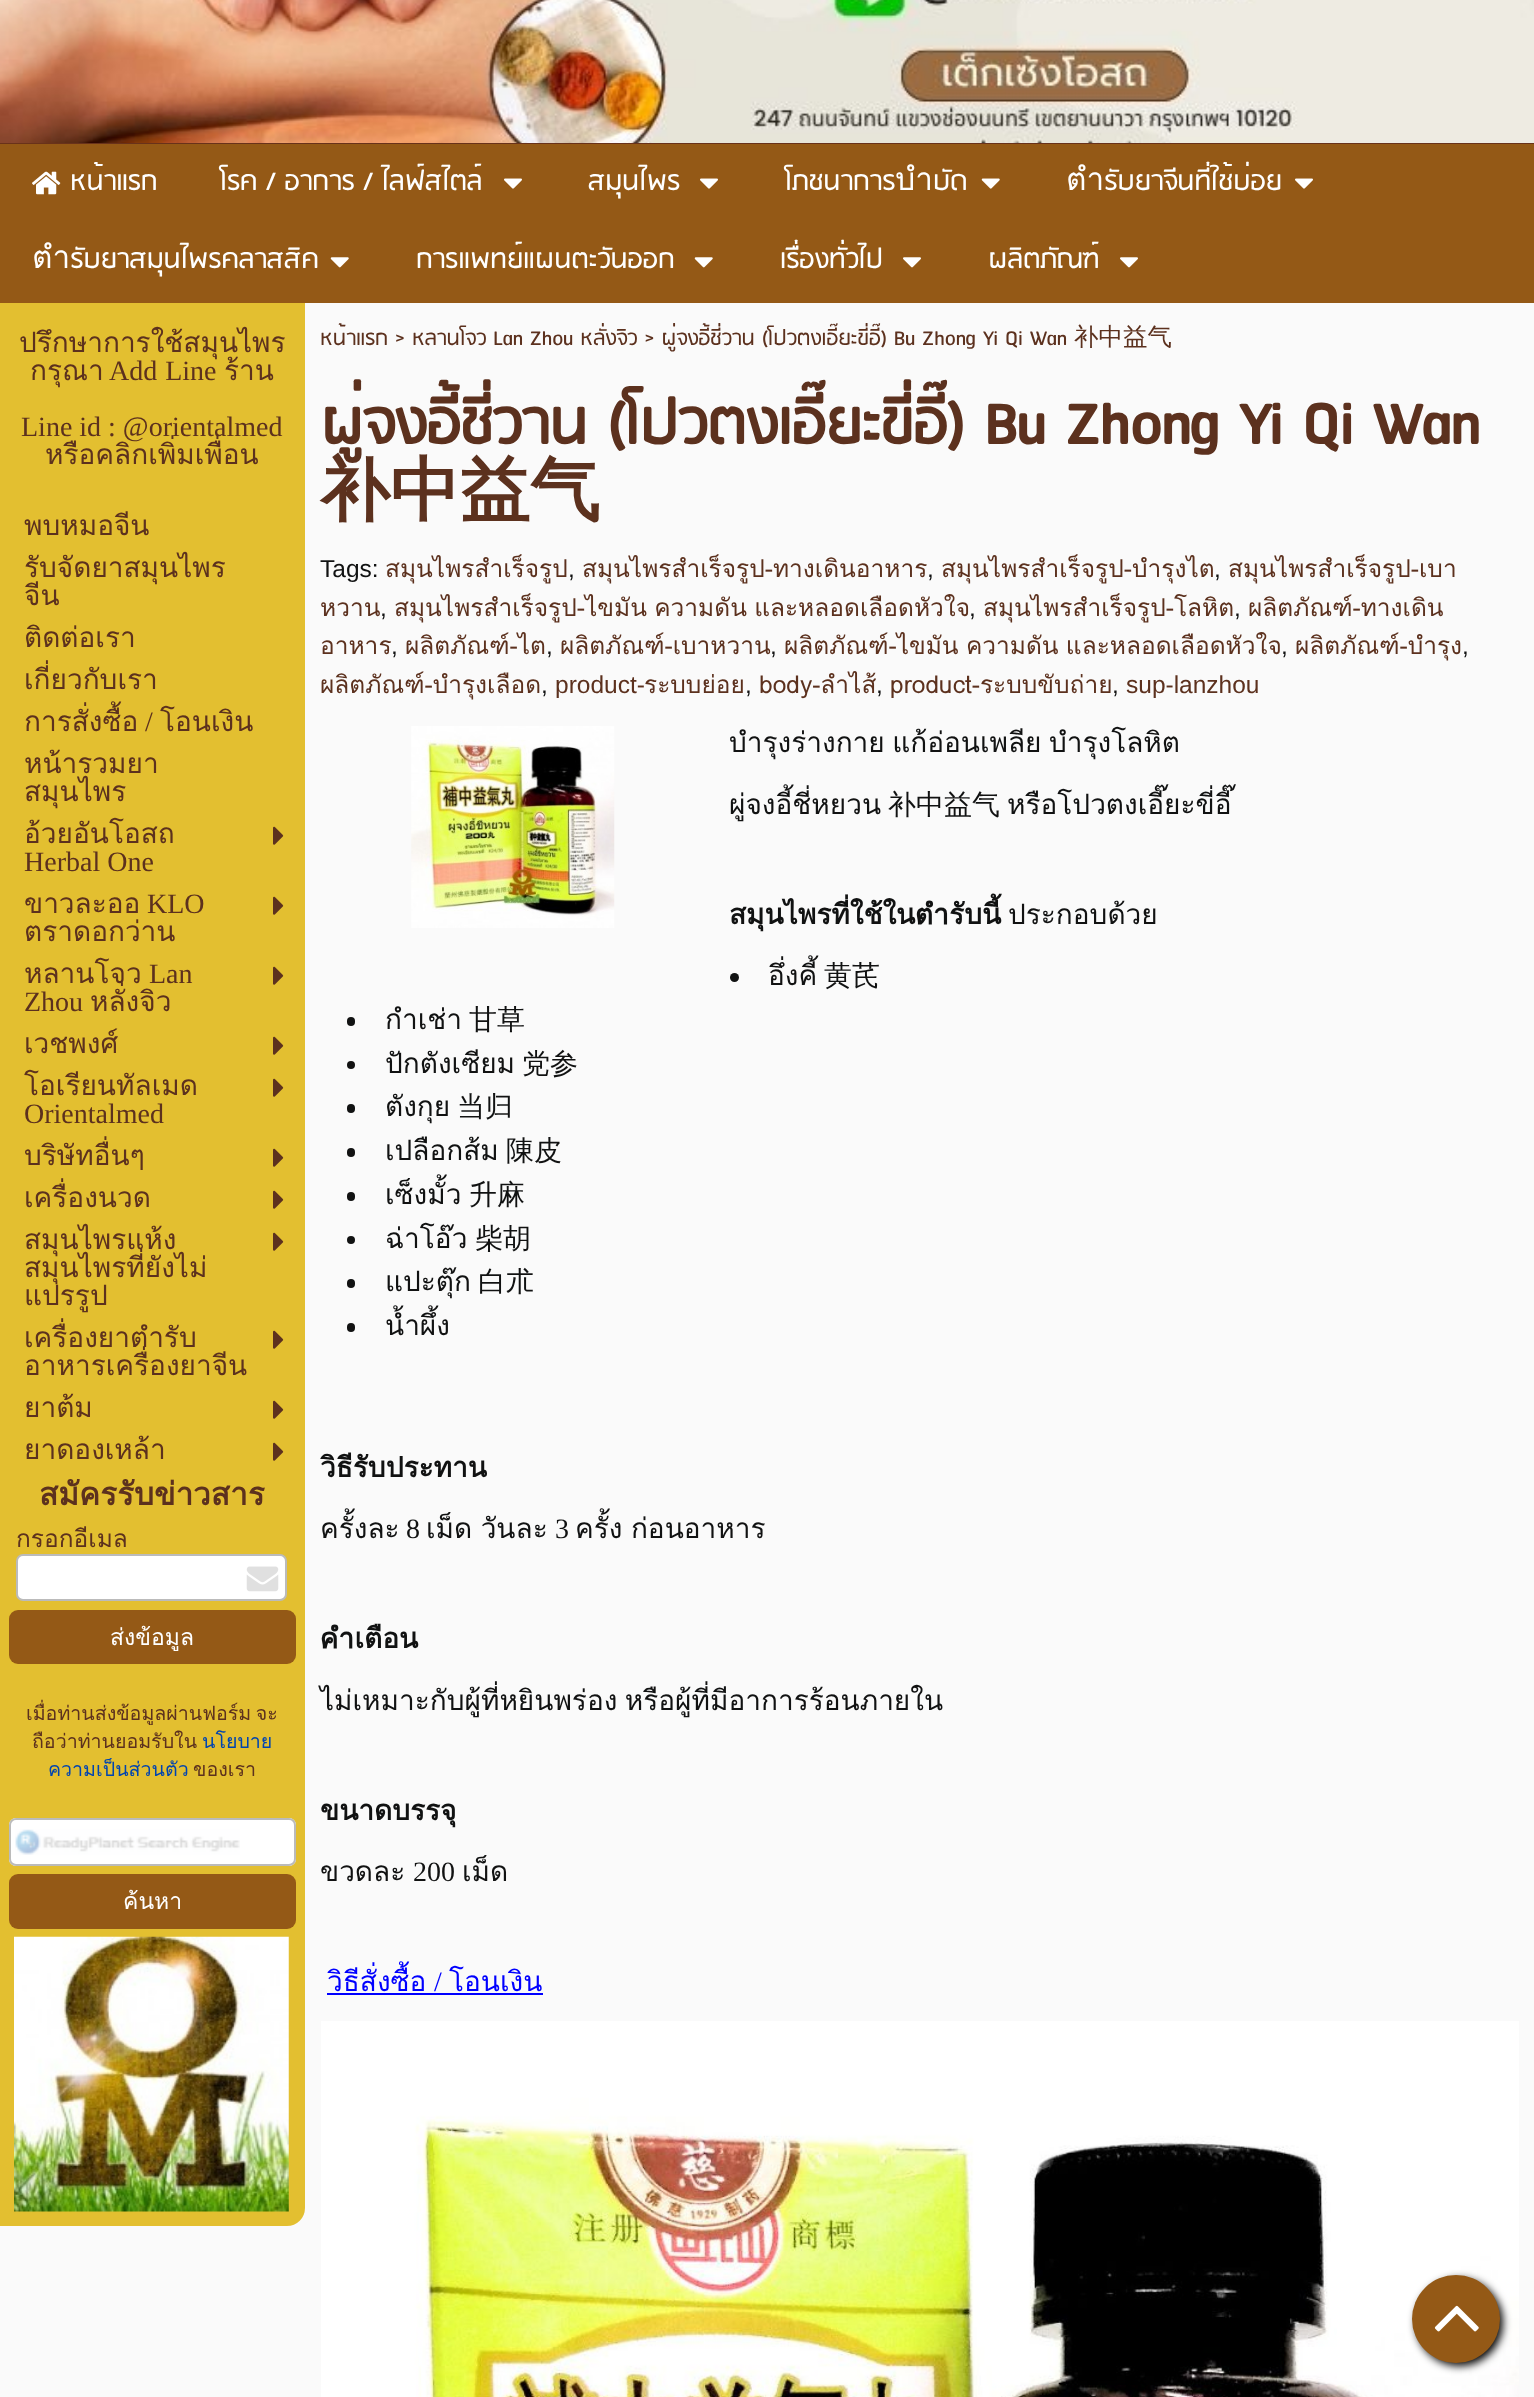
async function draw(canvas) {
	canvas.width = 1534;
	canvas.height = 2397;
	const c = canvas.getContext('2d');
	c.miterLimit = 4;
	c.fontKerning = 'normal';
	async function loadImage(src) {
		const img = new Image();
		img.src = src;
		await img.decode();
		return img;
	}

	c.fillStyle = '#fafafa';
	c.fillRect(0, 0, 1534, 2397);
	c.fillStyle = '#69321a';
	c.fillRect(0, 143, 1534, 1);
	c.drawImage(await loadImage('img1.png'), 0, 0, 1534, 143);
	c.fillStyle = '#945916';
	c.fillRect(0, 144, 1534, 159);
	c.drawImage(await loadImage('img2.png'), 32, 171, 29, 24);
	c.font = '31.5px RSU';
	c.fillStyle = '#fff';
	c.fillText('หน้าแรก', 70, 190);
	c.fillText('โรค / อาการ / ไลฟ์สไตล์', 220, 190);
	c.drawImage(await loadImage('img3.png'), 504, 178, 18, 11);
	c.fillText('สมุนไพร', 588, 190);
	c.drawImage(await loadImage('img3.png'), 700, 178, 18, 11);
	c.fillText('โภชนาการบำบัด', 785, 190);
	c.drawImage(await loadImage('img4.png'), 981, 178, 19, 11);
	c.fillText('ตำรับยาจีนที่ใช้บ่อย', 1066, 190);
	c.drawImage(await loadImage('img3.png'), 1295, 178, 18, 11);
	c.fillText('ตำรับยาสมุนไพรคลาสสิค', 32, 268);
	c.drawImage(await loadImage('img5.png'), 330, 257, 19, 11);
	c.fillText('การแพทย์แผนตะวันออก', 416, 268);
	c.drawImage(await loadImage('img5.png'), 694, 257, 19, 11);
	c.fillText('เรื่องทั่วไป', 780, 268);
	c.drawImage(await loadImage('img6.png'), 903, 257, 18, 11);
	c.fillText('ผลิตภัณฑ์', 988, 268);
	c.drawImage(await loadImage('img7.png'), 1120, 257, 18, 11);
	c.font = 'bold 70px RSU';
	c.fillStyle = '#5c311e';
	c.fillText('ผู่จงอี้ชี่วาน (โปวตงเอี๊ยะขี่อี๊) Bu Zhong Yi Qi Wan', 320, 444);
	c.fillStyle = '#e3bf30';
	c.beginPath();
	c.roundRect(0, 303, 305, 1923, [0, 0, 18, 0]);
	c.fill();
	c.font = '28px Loma';
	c.fillStyle = '#5c311e';
	c.fillText('ปรึกษาการใช้สมุนไพร', 19, 352);
	c.fillText('กรุณา', 30, 380);
	c.wordSpacing = '1px';
	c.font = '28px Liberation Serif';
	c.fillText('Add Line', 109, 380);
	c.wordSpacing = '0px';
	c.font = '28px Loma';
	c.fillText('ร้าน', 224, 380);
	c.font = '28px Liberation Serif';
	c.fillText('Line id : @orientalmed', 21, 436);
	c.font = '28px Loma';
	for (const [text, x, y] of [
		['หรือคลิกเพิ่มเพื่อน', 45, 464],
		['พบหมอจีน', 24, 535],
		['รับจัดยาสมุนไพร', 24, 577],
		['จีน', 24, 605],
		['ติดต่อเรา', 24, 647],
		['เกี่ยวกับเรา', 24, 689],
		['การสั่งซื้อ', 24, 731],
	]) {
		c.fillText(text, x, y);
	}
	c.font = '28px Liberation Serif';
	c.fillText('/', 145, 731);
	c.font = '28px Loma';
	for (const [text, x, y] of [
		['โอนเงิน', 160, 731],
		['หน้ารวมยา', 24, 773],
		['สมุนไพร', 24, 801],
		['อ้วยอันโอสถ', 24, 843],
	]) {
		c.fillText(text, x, y);
	}
	c.font = '28px Liberation Serif';
	c.fillText('Herbal One', 24, 871);
	c.drawImage(await loadImage('img8.png'), 273, 826, 11, 19);
	c.font = '28px Loma';
	c.fillText('ขาวละออ', 24, 913);
	c.font = '28px Liberation Serif';
	c.fillText('KLO', 147, 913);
	c.font = '28px Loma';
	c.fillText('ตราดอกว่าน', 24, 941);
	c.drawImage(await loadImage('img8.png'), 273, 896, 11, 19);
	c.fillText('หลานโจว', 24, 983);
	c.font = '28px Liberation Serif';
	c.fillText('Lan', 149, 983);
	c.fillText('Zhou', 24, 1011);
	c.font = '28px Loma';
	c.fillText('หลั่งจิว', 90, 1011);
	c.drawImage(await loadImage('img8.png'), 273, 966, 11, 19);
	c.fillText('เวชพงศ์', 24, 1053);
	c.drawImage(await loadImage('img8.png'), 273, 1036, 11, 19);
	c.fillText('โอเรียนทัลเมด', 24, 1095);
	c.font = '28px Liberation Serif';
	c.fillText('Orientalmed', 24, 1123);
	c.drawImage(await loadImage('img8.png'), 273, 1078, 11, 19);
	c.font = '28px Loma';
	c.fillText('บริษัทอื่นๆ', 24, 1165);
	c.drawImage(await loadImage('img8.png'), 273, 1148, 11, 19);
	c.fillText('เครื่องนวด', 24, 1207);
	c.drawImage(await loadImage('img8.png'), 273, 1190, 11, 19);
	for (const [text, x, y] of [
		['สมุนไพรแห้ง', 24, 1249],
		['สมุนไพรที่ยังไม่', 24, 1277],
		['แปรรูป', 24, 1305],
	]) {
		c.fillText(text, x, y);
	}
	c.drawImage(await loadImage('img8.png'), 273, 1232, 11, 19);
	c.fillText('เครื่องยาตำรับ', 24, 1347);
	c.fillText('อาหารเครื่องยาจีน', 24, 1375);
	c.drawImage(await loadImage('img8.png'), 273, 1330, 11, 19);
	c.fillText('ยาต้ม', 24, 1417);
	c.drawImage(await loadImage('img8.png'), 273, 1400, 11, 19);
	c.fillText('ยาดองเหล้า', 24, 1459);
	c.drawImage(await loadImage('img8.png'), 273, 1442, 11, 19);
	c.font = 'bold 31.5px Loma';
	c.fillText('สมัครรับข่าวสาร', 39, 1505);
	c.font = '24.5px Loma';
	c.fillText('กรอกอีเมล', 16, 1547);
	c.fillStyle = '#fff';
	c.beginPath();
	c.roundRect(17, 1555, 269, 45, 6);
	c.fill();
	c.strokeStyle = '#bbb';
	c.lineWidth = 2;
	c.stroke();
	c.drawImage(await loadImage('img9.png'), 246, 1566, 33, 26);
	c.fillStyle = '#945916';
	c.beginPath();
	c.roundRect(9, 1610, 287, 54, 9);
	c.fill();
	c.font = '23px Loma';
	c.fillStyle = '#fff';
	c.fillText('ส่งข้อมูล', 110, 1645);
	c.wordSpacing = '-2px';
	c.font = '19.6px Loma';
	c.fillStyle = '#5c311e';
	c.fillText('เมื่อท่านส่งข้อมูลผ่านฟอร์ม จะ', 26, 1720);
	c.wordSpacing = '0px';
	c.fillText('ถือว่าท่านยอมรับใน', 32, 1748);
	c.fillStyle = '#0044b0';
	c.fillText('นโยบาย', 202, 1748);
	c.fillText('ความเป็นส่วนตัว', 48, 1776);
	c.fillStyle = '#5c311e';
	c.fillText('ของเรา', 193, 1776);
	c.fillStyle = '#fff';
	c.beginPath();
	c.roundRect(9, 1818, 287, 48, 7);
	c.fill();
	c.drawImage(await loadImage('img10.png'), 15, 1829, 225, 26);
	c.beginPath();
	c.roundRect(10, 1819, 285, 46, 6);
	c.stroke();
	c.fillStyle = '#945916';
	c.beginPath();
	c.roundRect(9, 1874, 287, 55, 9);
	c.fill();
	c.font = '23px Loma';
	c.fillStyle = '#fff';
	c.fillText('ค้นหา', 123, 1909);
	c.drawImage(await loadImage('img11.png'), 14, 1936, 275, 276);
	c.font = '24.5px RSU';
	c.fillStyle = '#5c311e';
	c.fillText('หน้าแรก > หลานโจว Lan Zhou หลั่งจิว > ผู่จงอี้ชี่วาน (โปวตงเอี๊ยะขี่อี๊) Bu Zhong Yi Qi Wan', 320, 345);
	c.font = '500 24.5px WenQuanYi Zen Hei';
	c.fillText('补中益气', 1074, 345);
	c.font = 'bold 70px WenQuanYi Zen Hei';
	c.fillText('补中益气', 320, 514);
	c.font = '24.5px Liberation Sans';
	c.fillStyle = '#111212';
	c.fillText('Tags:', 320, 577);
	c.font = '24.5px Loma';
	c.fillStyle = '#5c311e';
	c.fillText('สมุนไพรสำเร็จรูป', 385, 577);
	c.font = '24.5px Liberation Sans';
	c.fillStyle = '#111212';
	c.fillText(',', 568, 577);
	c.font = '24.5px Loma';
	c.fillStyle = '#5c311e';
	c.fillText('สมุนไพรสำเร็จรูป-ทางเดินอาหาร', 582, 577);
	c.font = '24.5px Liberation Sans';
	c.fillStyle = '#111212';
	c.fillText(',', 927, 577);
	c.font = '24.5px Loma';
	c.fillStyle = '#5c311e';
	c.fillText('สมุนไพรสำเร็จรูป-บำรุงไต', 941, 577);
	c.font = '24.5px Liberation Sans';
	c.fillStyle = '#111212';
	c.fillText(',', 1214, 577);
	c.font = '24.5px Loma';
	c.fillStyle = '#5c311e';
	c.fillText('สมุนไพรสำเร็จรูป-เบา', 1228, 577);
	c.fillText('หวาน', 320, 616);
	c.font = '24.5px Liberation Sans';
	c.fillStyle = '#111212';
	c.fillText(',', 380, 616);
	c.wordSpacing = '-1px';
	c.font = '24.5px Loma';
	c.fillStyle = '#5c311e';
	c.fillText('สมุนไพรสำเร็จรูป-ไขมัน ความดัน และหลอดเลือดหัวใจ', 394, 616);
	c.wordSpacing = '0px';
	c.font = '24.5px Liberation Sans';
	c.fillStyle = '#111212';
	c.fillText(',', 969, 616);
	c.font = '24.5px Loma';
	c.fillStyle = '#5c311e';
	c.fillText('สมุนไพรสำเร็จรูป-โลหิต', 983, 616);
	c.font = '24.5px Liberation Sans';
	c.fillStyle = '#111212';
	c.fillText(',', 1234, 616);
	c.font = '24.5px Loma';
	c.fillStyle = '#5c311e';
	c.fillText('ผลิตภัณฑ์-ทางเดิน', 1248, 616);
	c.fillText('อาหาร', 320, 654);
	c.font = '24.5px Liberation Sans';
	c.fillStyle = '#111212';
	c.fillText(',', 391, 654);
	c.font = '24.5px Loma';
	c.fillStyle = '#5c311e';
	c.fillText('ผลิตภัณฑ์-ไต', 405, 654);
	c.font = '24.5px Liberation Sans';
	c.fillStyle = '#111212';
	c.fillText(',', 546, 654);
	c.font = '24.5px Loma';
	c.fillStyle = '#5c311e';
	c.fillText('ผลิตภัณฑ์-เบาหวาน', 560, 654);
	c.font = '24.5px Liberation Sans';
	c.fillStyle = '#111212';
	c.fillText(',', 770, 654);
	c.wordSpacing = '-1px';
	c.font = '24.5px Loma';
	c.fillStyle = '#5c311e';
	c.fillText('ผลิตภัณฑ์-ไขมัน ความดัน และหลอดเลือดหัวใจ', 784, 654);
	c.wordSpacing = '0px';
	c.font = '24.5px Liberation Sans';
	c.fillStyle = '#111212';
	c.fillText(',', 1281, 654);
	c.font = '24.5px Loma';
	c.fillStyle = '#5c311e';
	c.fillText('ผลิตภัณฑ์-บำรุง', 1295, 654);
	c.font = '24.5px Liberation Sans';
	c.fillStyle = '#111212';
	c.fillText(',', 1462, 654);
	c.font = '24.5px Loma';
	c.fillStyle = '#5c311e';
	c.fillText('ผลิตภัณฑ์-บำรุงเลือด', 320, 693);
	c.font = '24.5px Liberation Sans';
	c.fillStyle = '#111212';
	c.fillText(',', 541, 693);
	c.fillStyle = '#5c311e';
	c.fillText('product-', 555, 693);
	c.font = '24.5px Loma';
	c.fillText('ระบบย่อย', 644, 693);
	c.font = '24.5px Liberation Sans';
	c.fillStyle = '#111212';
	c.fillText(',', 745, 693);
	c.font = '24.5px Loma';
	c.fillStyle = '#5c311e';
	c.fillText('body-ลำไส้', 759, 693);
	c.font = '24.5px Liberation Sans';
	c.fillStyle = '#111212';
	c.fillText(',', 876, 693);
	c.font = '24.5px Loma';
	c.fillStyle = '#5c311e';
	c.fillText('product-ระบบขับถ่าย', 890, 693);
	c.font = '24.5px Liberation Sans';
	c.fillStyle = '#111212';
	c.fillText(',', 1112, 693);
	c.fillStyle = '#5c311e';
	c.fillText('sup-lanzhou', 1126, 693);
	c.wordSpacing = '-2px';
	c.font = '28px Loma';
	c.fillStyle = '#111212';
	c.fillText('บำรุงร่างกาย แก้อ่อนเพลีย บำรุงโลหิต', 729, 752);
	c.wordSpacing = '0px';
	c.fillText('ผู่จงอี้ชี่หยวน', 729, 814);
	c.font = '500 28px WenQuanYi Zen Hei';
	c.fillText('补中益气', 888, 814);
	c.font = '28px Loma';
	c.fillText('หรือโปวตงเอี๊ยะขี่อี๊', 1007, 814);
	c.font = 'bold 28px Loma';
	c.fillText('สมุนไพรที่ใช้ในตำรับนี้', 729, 924);
	c.font = '28px Loma';
	c.fillText('ประกอบด้วย', 1008, 924);
	c.beginPath();
	c.arc(734.5, 977.5, 4.5, 0, 2 * Math.PI);
	c.fill();
	c.fillText('อึ่งคี้', 768, 985);
	c.font = '500 28px WenQuanYi Zen Hei';
	c.fillText('黄芪', 824, 985);
	c.beginPath();
	c.roundRect(347, 1017, 8, 9, 4);
	c.fill();
	c.font = '28px Loma';
	c.fillText('กำเช่า', 385, 1029);
	c.font = '500 28px WenQuanYi Zen Hei';
	c.fillText('甘草', 469, 1029);
	c.beginPath();
	c.arc(351, 1065, 4, 0, 2 * Math.PI);
	c.fill();
	c.font = '28px Loma';
	c.fillText('ปักตังเซียม', 385, 1073);
	c.font = '500 28px WenQuanYi Zen Hei';
	c.fillText('党参', 522, 1073);
	c.beginPath();
	c.roundRect(347, 1104, 8, 9, 4);
	c.fill();
	c.font = '28px Loma';
	c.fillText('ตังกุย', 385, 1116);
	c.font = '500 28px WenQuanYi Zen Hei';
	c.fillText('当归', 457, 1116);
	c.beginPath();
	c.roundRect(347, 1148, 8, 9, 4);
	c.fill();
	c.font = '28px Loma';
	c.fillText('เปลือกส้ม', 385, 1160);
	c.font = '500 28px WenQuanYi Zen Hei';
	c.fillText('陳皮', 506, 1160);
	c.beginPath();
	c.roundRect(347, 1192, 8, 9, 4);
	c.fill();
	c.font = '28px Loma';
	c.fillText('เซ็งมั้ว', 385, 1204);
	c.font = '500 28px WenQuanYi Zen Hei';
	c.fillText('升麻', 469, 1204);
	c.beginPath();
	c.arc(351, 1240, 4, 0, 2 * Math.PI);
	c.fill();
	c.font = '28px Loma';
	c.fillText('ฉ่าโอ๊ว', 385, 1248);
	c.font = '500 28px WenQuanYi Zen Hei';
	c.fillText('柴胡', 475, 1248);
	c.beginPath();
	c.roundRect(347, 1279, 8, 9, 4);
	c.fill();
	c.font = '28px Loma';
	c.fillText('แปะตุ๊ก', 385, 1291);
	c.font = '500 28px WenQuanYi Zen Hei';
	c.fillText('白朮', 478, 1291);
	c.beginPath();
	c.roundRect(347, 1323, 8, 9, 4);
	c.fill();
	c.font = '28px Loma';
	c.fillText('น้ำผึ้ง', 385, 1335);
	c.font = 'bold 28px Loma';
	c.fillText('วิธีรับประทาน', 320, 1477);
	c.font = '28px Loma';
	c.fillText('ครั้งละ', 320, 1538);
	c.font = '28px Liberation Serif';
	c.fillText('8', 406, 1538);
	c.wordSpacing = '-1px';
	c.font = '28px Loma';
	c.fillText('เม็ด วันละ', 426, 1538);
	c.wordSpacing = '0px';
	c.font = '28px Liberation Serif';
	c.fillText('3', 555, 1538);
	c.wordSpacing = '-1px';
	c.font = '28px Loma';
	c.fillText('ครั้ง ก่อนอาหาร', 575, 1538);
	c.wordSpacing = '0px';
	c.font = 'bold 28px Loma';
	c.fillText('คำเตือน', 320, 1648);
	c.wordSpacing = '-2px';
	c.font = '28px Loma';
	c.fillText('ไม่เหมาะกับผู้ที่หยินพร่อง หรือผู้ที่มีอาการร้อนภายใน', 320, 1710);
	c.wordSpacing = '0px';
	c.font = 'bold 28px Loma';
	c.fillText('ขนาดบรรจุ', 320, 1820);
	c.font = '28px Loma';
	c.fillText('ขวดละ', 320, 1881);
	c.font = '28px Liberation Serif';
	c.fillText('200', 413, 1881);
	c.font = '28px Loma';
	c.fillText('เม็ด', 462, 1881);
	c.fillStyle = '#00f';
	c.fillText('วิธีสั่งซื้อ', 327, 1991);
	c.font = '28px Liberation Serif';
	c.fillText('/', 434, 1991);
	c.fillRect(327, 1993, 216, 2);
	c.font = '28px Loma';
	c.fillText('โอนเงิน', 449, 1991);
	c.drawImage(await loadImage('img12.png'), 321, 2021, 1198, 376);
	c.drawImage(await loadImage('img13.png'), 411, 726, 204, 202);
	c.fillStyle = '#000';
	c.filter = 'blur(4.5px)';
	c.beginPath();
	c.roundRect(1416, 2279, 87, 87, 43.5);
	c.fill();
	c.filter = 'none';
	c.fillStyle = '#945916';
	c.beginPath();
	c.arc(1456, 2319, 44, 0, 2 * Math.PI);
	c.fill();
	c.drawImage(await loadImage('img14.png'), 1434, 2305, 45, 27);
}

draw(document.querySelector('canvas'));
